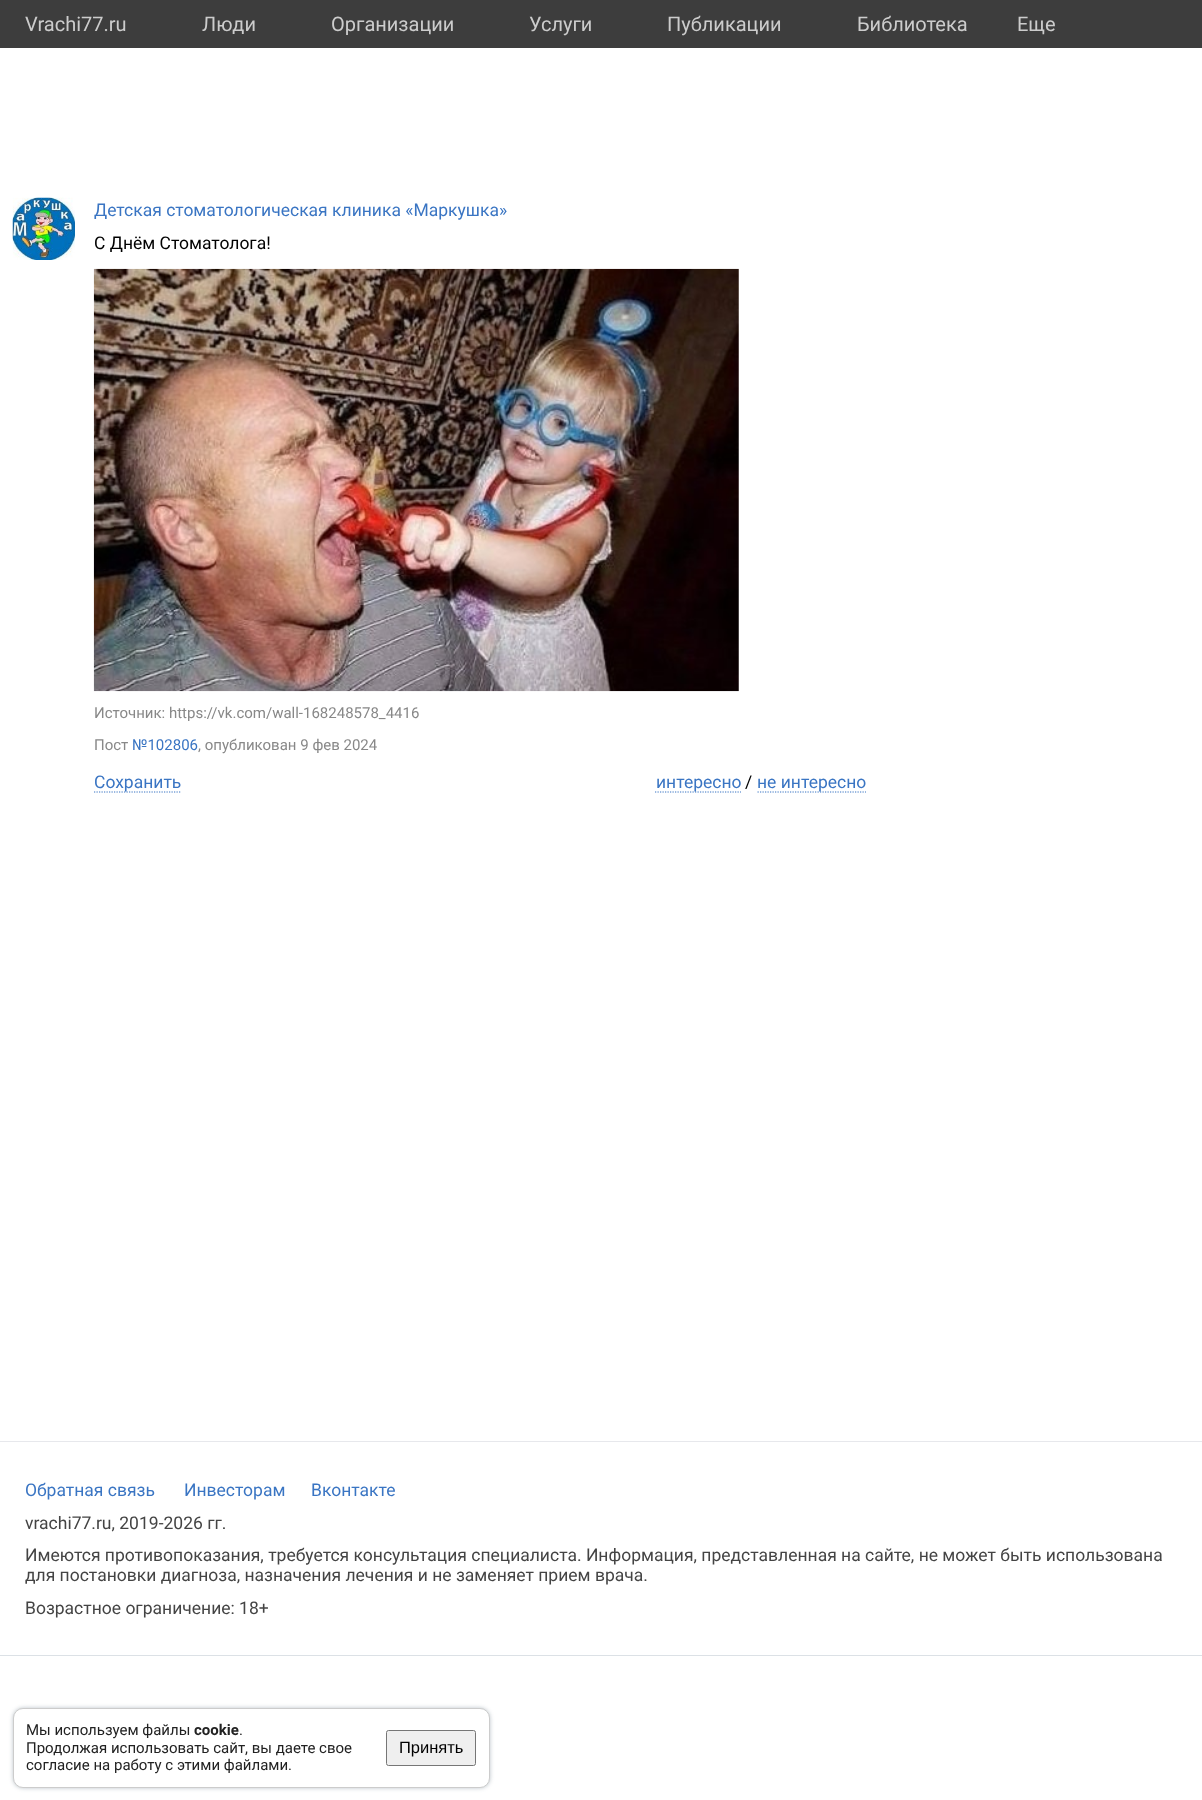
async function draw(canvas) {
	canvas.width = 1202;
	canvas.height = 1800;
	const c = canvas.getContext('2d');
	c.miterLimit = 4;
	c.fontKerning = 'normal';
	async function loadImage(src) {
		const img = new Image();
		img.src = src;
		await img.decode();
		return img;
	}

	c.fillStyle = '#fff';
	c.fillRect(0, 0, 1202, 1800);
	c.fillStyle = '#3d3d3d';
	c.fillRect(0, 0, 1202, 48);
	c.font = '20px Roboto';
	c.fillStyle = '#ccc';
	for (const [text, x, y] of [
		['Vrachi77.ru', 25, 31],
		['Люди', 202, 31],
		['Организации', 331, 31],
		['Услуги', 529, 31],
		['Публикации', 667, 31],
		['Библиотека', 857, 31],
		['Eще', 1017, 31],
	]) {
		c.fillText(text, x, y);
	}
	c.drawImage(await loadImage('img1.png'), 12, 197, 63, 63);
	c.font = '17.5px Roboto';
	c.fillStyle = '#3a75c3';
	c.fillText('Детская стоматологическая клиника «Маркушка»', 94, 216);
	c.fillStyle = '#000';
	c.fillText('С Днём Стоматолога!', 94, 249);
	c.drawImage(await loadImage('img2.png'), 93, 268, 646, 424);
	c.font = '15px Roboto';
	c.fillStyle = '#888';
	c.fillText('Источник: https://vk.com/wall-168248578_4416', 94, 718);
	c.fillText('Пост', 94, 750);
	c.fillStyle = '#3a75c3';
	c.fillText('№102806', 132, 750);
	c.fillStyle = '#888';
	c.fillText(', опубликован 9 фев 2024', 198, 750);
	c.beginPath();
	c.moveTo(94, 792);
	c.lineTo(181, 792);
	c.strokeStyle = '#3a75c3';
	c.lineWidth = 1.2;
	c.setLineDash([1.25, 1.25]);
	c.stroke();
	c.font = '17.5px Roboto';
	c.fillStyle = '#3a75c3';
	c.fillText('Сохранить', 94, 788);
	c.beginPath();
	c.moveTo(655, 792);
	c.lineTo(741, 792);
	c.stroke();
	c.fillText('интересно', 656, 788);
	c.fillStyle = '#000';
	c.fillText('/', 745, 788);
	c.beginPath();
	c.moveTo(757.5, 792);
	c.lineTo(866, 792);
	c.stroke();
	c.fillStyle = '#3a75c3';
	c.fillText('не интересно', 757, 788);
	c.fillStyle = '#223c504d';
	c.filter = 'blur(2px)';
	c.beginPath();
	c.roundRect(13, 1708, 477, 80, 10);
	c.fill();
	c.filter = 'none';
	c.fillStyle = '#fff';
	c.beginPath();
	c.roundRect(13.5, 1708.5, 476, 79, 9.5);
	c.fill();
	c.strokeStyle = '#ccc';
	c.lineWidth = 1;
	c.setLineDash([]);
	c.stroke();
	c.font = '15px Roboto';
	c.fillStyle = '#222';
	c.fillText('Мы используем файлы', 26, 1735);
	c.font = 'bold 15px Roboto';
	c.fillText('cookie', 194, 1735);
	c.font = '15px Roboto';
	for (const [text, x, y] of [
		['.', 239, 1735],
		['Продолжая использовать сайт, вы даете свое', 26, 1753],
		['согласие на работу с этими файлами.', 26, 1770],
	]) {
		c.fillText(text, x, y);
	}
	c.fillStyle = '#efefef';
	c.beginPath();
	c.roundRect(386.5, 1730.5, 89, 35, 2);
	c.fill();
	c.strokeStyle = '#767676';
	c.stroke();
	c.font = '16.5px Liberation Sans';
	c.fillStyle = '#000';
	c.fillText('Принять', 399, 1753);
	c.strokeStyle = '#e7e8ec';
	c.strokeRect(-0.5, 1441.5, 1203, 214);
	c.fillStyle = '#dce1e6';
	c.beginPath();
	c.moveTo(0, 1655);
	c.lineTo(0, 1656);
	c.lineTo(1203, 1656);
	c.lineTo(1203, 1444);
	c.lineTo(1202, 1444);
	c.lineTo(1202, 1655);
	c.closePath();
	c.fill();
	c.font = '17.5px Roboto';
	c.fillStyle = '#3a75c3';
	for (const [text, x, y] of [
		['Обратная связь', 25, 1496],
		['Инвесторам', 184, 1496],
		['Вконтакте', 311, 1496],
	]) {
		c.fillText(text, x, y);
	}
	c.fillStyle = '#444';
	for (const [text, x, y] of [
		['vrachi77.ru, 2019-2026 гг.', 25, 1529],
		['Имеются противопоказания, требуется консультация специалиста. Информация, представленная на сайте, не может быть использована', 25, 1561],
		['для постановки диагноза, назначения лечения и не заменяет прием врача.', 25, 1581],
		['Возрастное ограничение: 18+', 25, 1614],
	]) {
		c.fillText(text, x, y);
	}
}

draw(document.querySelector('canvas'));
